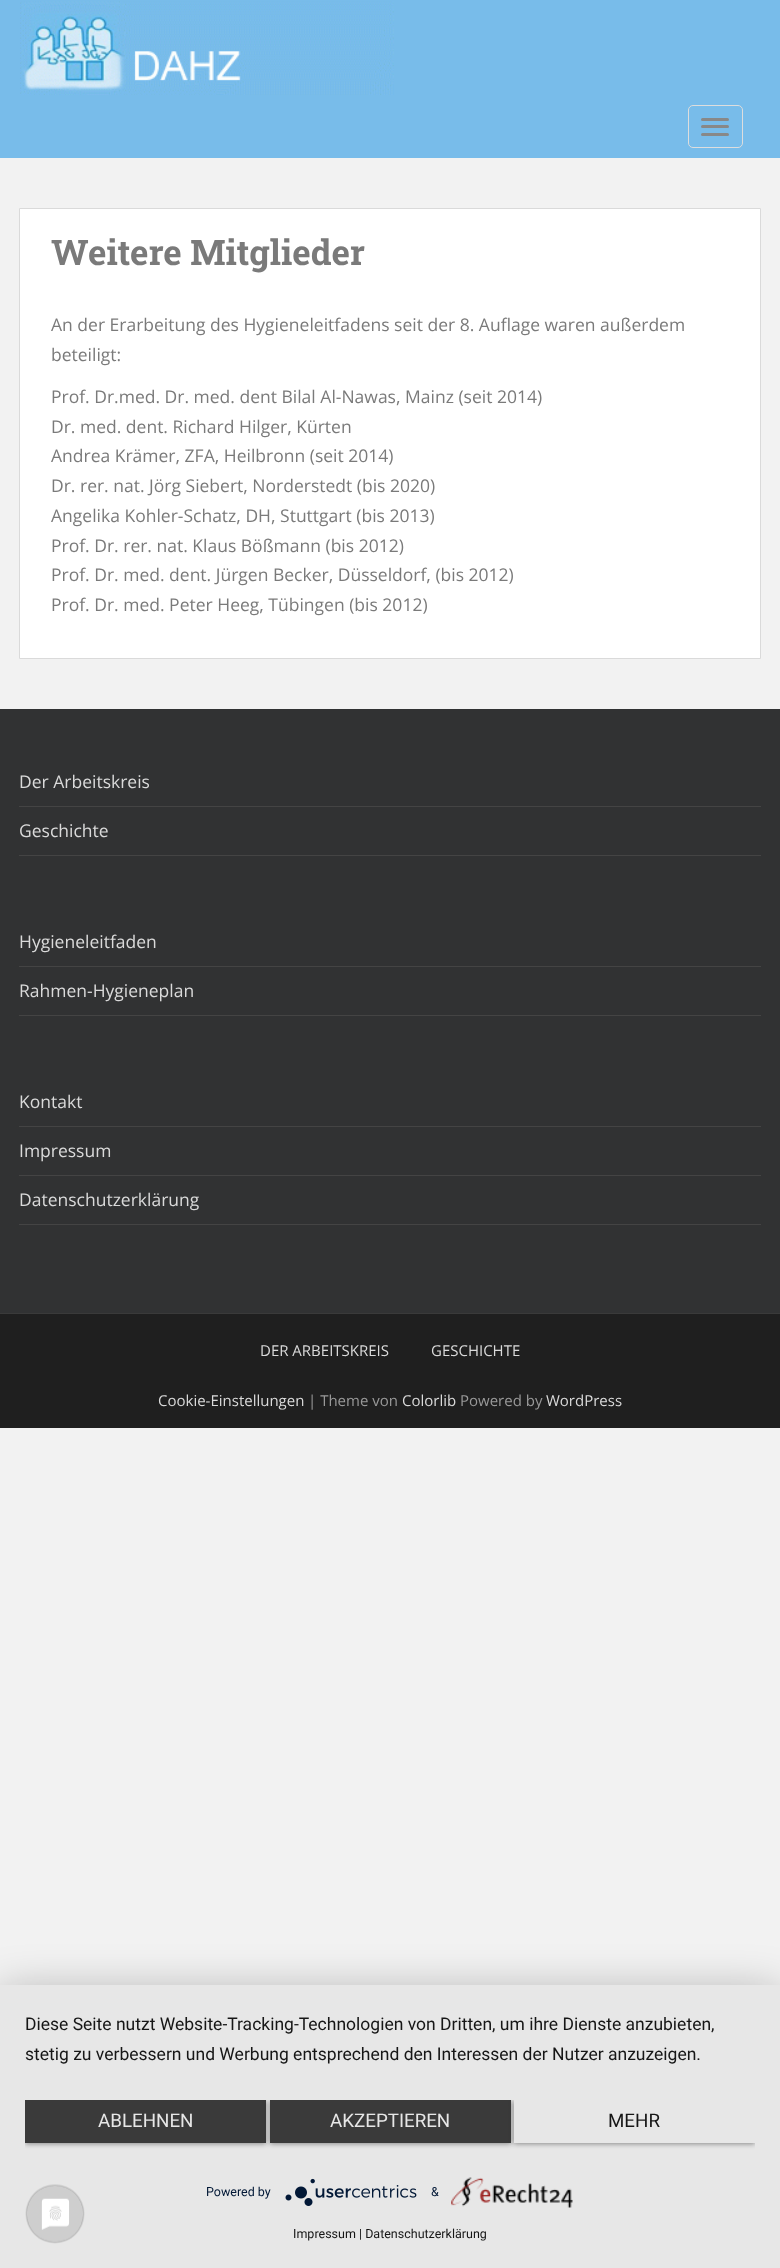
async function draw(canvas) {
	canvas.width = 780;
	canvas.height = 2268;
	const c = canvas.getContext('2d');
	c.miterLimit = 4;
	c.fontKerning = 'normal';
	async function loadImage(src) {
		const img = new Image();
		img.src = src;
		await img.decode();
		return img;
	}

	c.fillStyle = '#f2f2f2';
	c.fillRect(0, 0, 780, 2268);
	c.fillStyle = '#78bcea';
	c.fillRect(0, 0, 780, 158);
	c.drawImage(await loadImage('img1.png'), 20, 1, 374, 94);
	c.beginPath();
	c.roundRect(688.5, 105.5, 54, 42, 4.5);
	c.strokeStyle = '#ddd';
	c.stroke();
	c.fillStyle = '#888';
	c.beginPath();
	c.roundRect(701, 118, 28, 3, 1.5);
	c.fill();
	c.beginPath();
	c.roundRect(701, 125, 28, 3, 1.5);
	c.fill();
	c.beginPath();
	c.roundRect(701, 133, 28, 3, 1.5);
	c.fill();
	c.fillStyle = '#fff';
	c.beginPath();
	c.rect(19.5, 208.5, 741, 450);
	c.fill();
	c.strokeStyle = '#dadada';
	c.stroke();
	c.font = 'bold 35px Roboto Slab';
	c.fillStyle = '#7a7a7a';
	c.fillText('Weitere Mitglieder', 51, 265);
	c.font = '17.5px Open Sans';
	for (const [text, x, y] of [
		['An der Erarbeitung des Hygieneleitfadens seit der 8. Auflage waren außerdem', 51, 331],
		['beteiligt:', 51, 361],
		['Prof. Dr.med. Dr. med. dent Bilal Al-Nawas, Mainz (seit 2014)', 51, 403],
		['Dr. med. dent. Richard Hilger, Kürten', 51, 433],
		['Andrea Krämer, ZFA, Heilbronn (seit 2014)', 51, 462],
		['Dr. rer. nat. Jörg Siebert, Norderstedt (bis 2020)', 51, 492],
		['Angelika Kohler-Schatz, DH, Stuttgart (bis 2013)', 51, 522],
		['Prof. Dr. rer. nat. Klaus Bößmann (bis 2012)', 51, 552],
		['Prof. Dr. med. dent. Jürgen Becker, Düsseldorf, (bis 2012)', 51, 581],
		['Prof. Dr. med. Peter Heeg, Tübingen (bis 2012)', 51, 611],
	]) {
		c.fillText(text, x, y);
	}
	c.fillStyle = '#313233';
	c.fillRect(0, 709, 780, 604);
	c.fillStyle = '#444';
	c.fillRect(19, 806, 742, 1);
	c.fillStyle = '#dadada';
	c.fillText('Der Arbeitskreis', 19, 788);
	c.fillStyle = '#444';
	c.fillRect(19, 855, 742, 1);
	c.fillStyle = '#dadada';
	c.fillText('Geschichte', 19, 837);
	c.fillStyle = '#444';
	c.fillRect(19, 966, 742, 1);
	c.fillStyle = '#dadada';
	c.fillText('Hygieneleitfaden', 19, 948);
	c.fillStyle = '#444';
	c.fillRect(19, 1015, 742, 1);
	c.fillStyle = '#dadada';
	c.fillText('Rahmen-Hygieneplan', 19, 997);
	c.fillStyle = '#444';
	c.fillRect(19, 1126, 742, 1);
	c.fillStyle = '#dadada';
	c.fillText('Kontakt', 19, 1108);
	c.fillStyle = '#444';
	c.fillRect(19, 1175, 742, 1);
	c.fillStyle = '#dadada';
	c.fillText('Impressum', 19, 1157);
	c.fillStyle = '#444';
	c.fillRect(19, 1224, 742, 1);
	c.fillStyle = '#dadada';
	c.fillText('Datenschutzerklärung', 19, 1206);
	c.fillStyle = '#1f1f1f';
	c.fillRect(0, 1314, 780, 114);
	c.fillStyle = '#3a3a3a';
	c.fillRect(0, 1313, 780, 1);
	c.font = '15px Open Sans';
	c.fillStyle = '#dadada';
	for (const [text, x, y] of [
		['DER ARBEITSKREIS', 260, 1356],
		['GESCHICHTE', 431, 1356],
		['Cookie-Einstellungen', 158, 1406],
	]) {
		c.fillText(text, x, y);
	}
	c.fillStyle = '#999';
	c.fillText('| Theme von', 308, 1406);
	c.fillStyle = '#dadada';
	c.fillText('Colorlib', 402, 1406);
	c.fillStyle = '#999';
	c.fillText('Powered by', 460, 1406);
	c.fillStyle = '#dadada';
	c.fillText('WordPress', 546, 1406);
	c.fillStyle = '#0000004d';
	c.filter = 'blur(22.5px)';
	c.beginPath();
	c.rect(0, 1993, 780, 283);
	c.fill();
	c.filter = 'none';
	c.fillStyle = '#e7e7e7';
	c.fillRect(0, 1985, 780, 283);
	c.font = '17.5px Roboto';
	c.fillStyle = '#161616';
	c.fillText('Diese Seite nutzt Website-Tracking-Technologien von Dritten, um ihre Dienste anzubieten,', 25, 2030);
	c.fillText('stetig zu verbessern und Werbung entsprechend den Interessen der Nutzer anzuzeigen.', 25, 2060);
	c.save();
	c.beginPath();
	c.rect(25, 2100, 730, 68);
	c.clip();
	c.fillStyle = '#00000066';
	c.filter = 'blur(2.5px)';
	c.beginPath();
	c.rect(25, 2101, 241, 43);
	c.fill();
	c.filter = 'none';
	c.restore();
	c.fillStyle = '#3a3a3a';
	c.fillRect(25, 2100, 241, 43);
	c.font = '18.75px Roboto';
	c.fillStyle = '#e7e7e7';
	c.fillText('ABLEHNEN', 98, 2127);
	c.save();
	c.beginPath();
	c.rect(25, 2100, 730, 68);
	c.clip();
	c.fillStyle = '#00000066';
	c.filter = 'blur(2.5px)';
	c.beginPath();
	c.rect(270, 2101, 241, 43);
	c.fill();
	c.filter = 'none';
	c.restore();
	c.fillStyle = '#3a3a3a';
	c.fillRect(270, 2100, 241, 43);
	c.fillStyle = '#e7e7e7';
	c.fillText('AKZEPTIEREN', 330, 2127);
	c.save();
	c.beginPath();
	c.rect(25, 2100, 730, 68);
	c.clip();
	c.fillStyle = '#00000066';
	c.filter = 'blur(2.5px)';
	c.beginPath();
	c.rect(514, 2101, 241, 43);
	c.fill();
	c.filter = 'none';
	c.restore();
	c.fillRect(514, 2100, 241, 43);
	c.fillStyle = '#161616';
	c.fillText('MEHR', 608, 2127);
	c.font = '12.5px Roboto';
	c.fillStyle = '#021836';
	c.fillText('Powered by', 206, 2196);
	c.drawImage(await loadImage('img2.png'), 285, 2178, 132, 28);
	c.fillText('&', 431, 2196);
	c.drawImage(await loadImage('img3.png'), 451, 2177, 122, 31);
	c.fillStyle = '#161616';
	c.fillText('Impressum | Datenschutzerklärung', 293, 2238);
	c.drawImage(await loadImage('img4.png'), 25, 2184, 60, 60);
}

draw(document.querySelector('canvas'));
